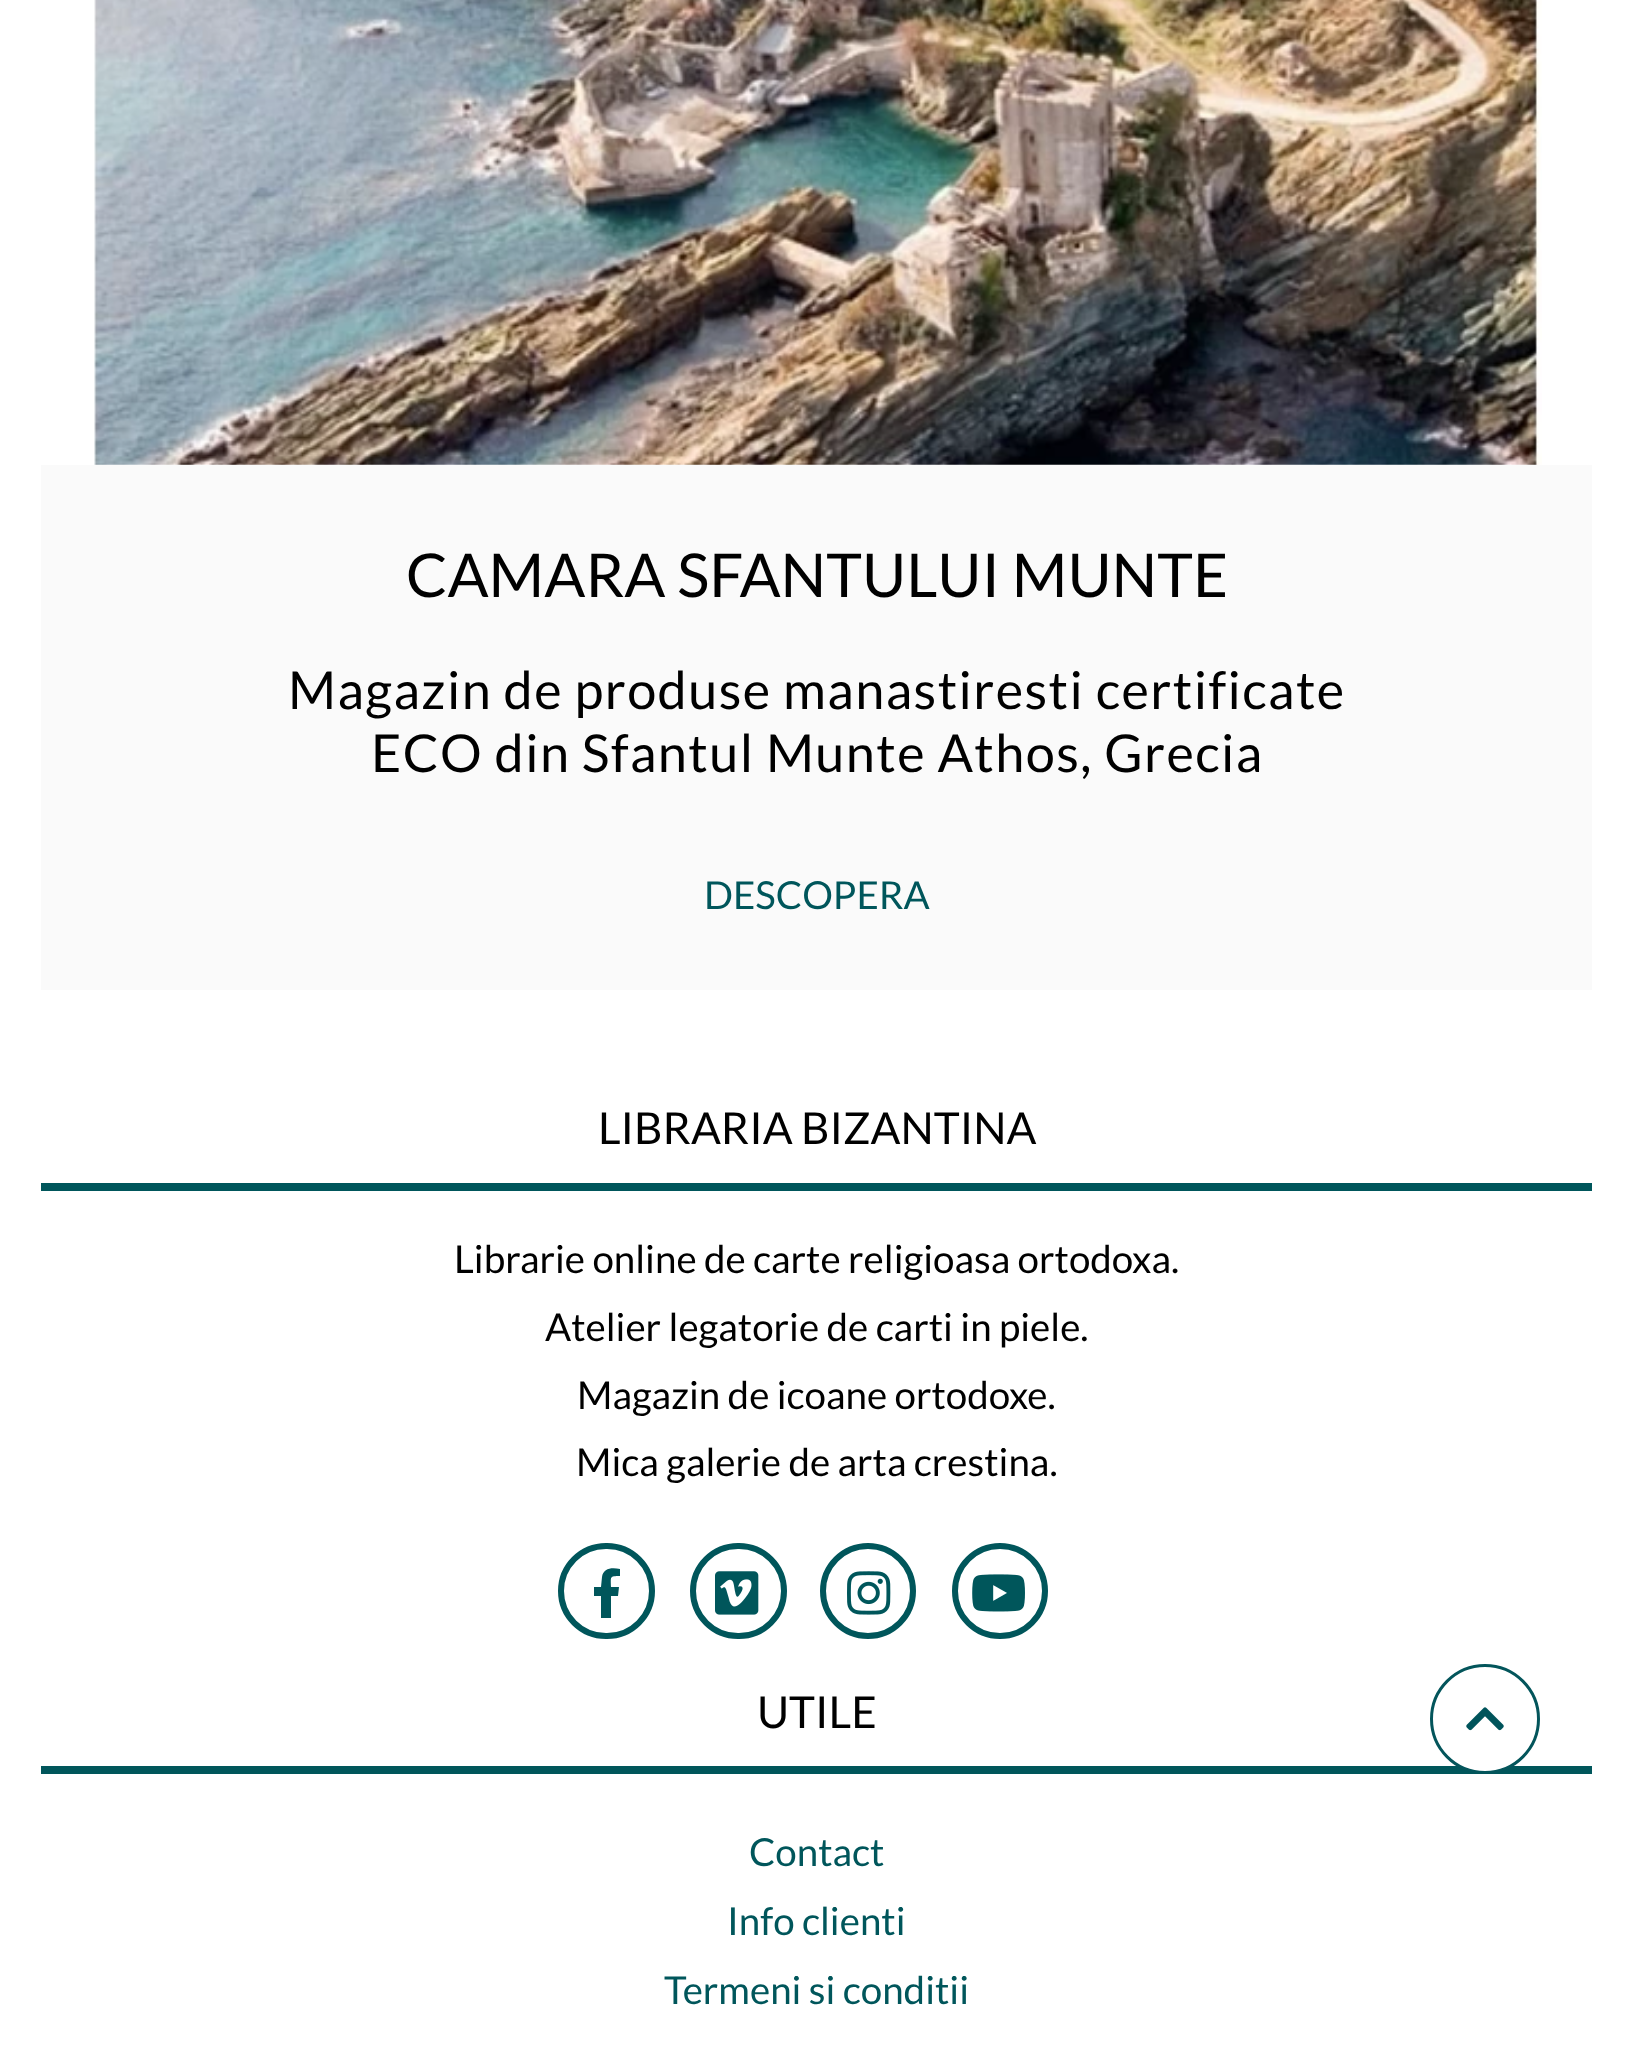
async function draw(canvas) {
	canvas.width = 1631;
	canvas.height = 2047;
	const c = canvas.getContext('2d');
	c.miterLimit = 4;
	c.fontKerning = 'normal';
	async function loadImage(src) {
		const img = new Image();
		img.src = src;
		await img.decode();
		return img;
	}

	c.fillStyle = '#fff';
	c.fillRect(0, 0, 1631, 2047);
	c.drawImage(await loadImage('img1.png'), 94, 0, 1448, 465);
	c.fillStyle = '#fafafa';
	c.fillRect(41, 465, 1551, 525);
	c.font = '60.5px Lato';
	c.fillStyle = '#000';
	c.fillText('CAMARA SFANTULUI MUNTE', 406, 597);
	c.letterSpacing = '1.4px';
	c.font = '52.25px Lato';
	c.fillText('Magazin de produse manastiresti certificate', 288, 709);
	c.fillText('ECO din Sfantul Munte Athos, Grecia', 371, 772);
	c.letterSpacing = '0px';
	c.font = '38.5px Lato';
	c.fillStyle = '#00565b';
	c.fillText('DESCOPERA', 704, 909);
	c.fillRect(41, 1183, 1551, 8);
	c.font = '44px Lato';
	c.fillStyle = '#000';
	c.fillText('LIBRARIA BIZANTINA', 598, 1144);
	c.font = '38.5px Lato';
	for (const [text, x, y] of [
		['Librarie online de carte religioasa ortodoxa.', 454, 1273],
		['Atelier legatorie de carti in piele.', 545, 1341],
		['Magazin de icoane ortodoxe.', 577, 1409],
		['Mica galerie de arta crestina.', 576, 1476],
	]) {
		c.fillText(text, x, y);
	}
	c.beginPath();
	c.roundRect(561, 1546, 91, 90, 45);
	c.strokeStyle = '#00565b';
	c.lineWidth = 6;
	c.stroke();
	c.fillStyle = '#00565b';
	c.beginPath();
	c.moveTo(601, 1618);
	c.lineTo(601, 1596);
	c.lineTo(594, 1596);
	c.lineTo(594, 1587);
	c.lineTo(601, 1587);
	c.lineTo(602, 1577);
	c.bezierCurveTo(603, 1568, 612, 1567, 620, 1569);
	c.lineTo(620, 1576);
	c.bezierCurveTo(609, 1576, 611, 1577, 611, 1587);
	c.lineTo(619, 1587);
	c.lineTo(618, 1596);
	c.lineTo(611, 1596);
	c.lineTo(611, 1618);
	c.closePath();
	c.fill();
	c.beginPath();
	c.roundRect(693, 1546, 91, 90, 45);
	c.stroke();
	c.drawImage(await loadImage('img2.png'), 715, 1571, 44, 44);
	c.beginPath();
	c.arc(868, 1591, 45, 0, 2 * Math.PI);
	c.stroke();
	c.drawImage(await loadImage('img3.png'), 847, 1571, 44, 44);
	c.beginPath();
	c.arc(1000, 1591, 45, 0, 2 * Math.PI);
	c.stroke();
	c.drawImage(await loadImage('img4.png'), 972, 1574, 53, 38);
	c.fillRect(41, 1766, 1551, 8);
	c.font = '44px Lato';
	c.fillStyle = '#000';
	c.fillText('UTILE', 757, 1728);
	c.font = '38.5px Lato';
	c.fillStyle = '#00565b';
	for (const [text, x, y] of [
		['Contact', 749, 1866],
		['Info clienti', 727, 1935],
		['Termeni si conditii', 664, 2004],
	]) {
		c.fillText(text, x, y);
	}
	c.fillStyle = '#fff';
	c.beginPath();
	c.arc(1485, 1719, 53.5, 0, 2 * Math.PI);
	c.fill();
	c.strokeStyle = '#03555b';
	c.lineWidth = 3;
	c.stroke();
	c.drawImage(await loadImage('img5.png'), 1466, 1707, 38, 24);
}

draw(document.querySelector('canvas'));
